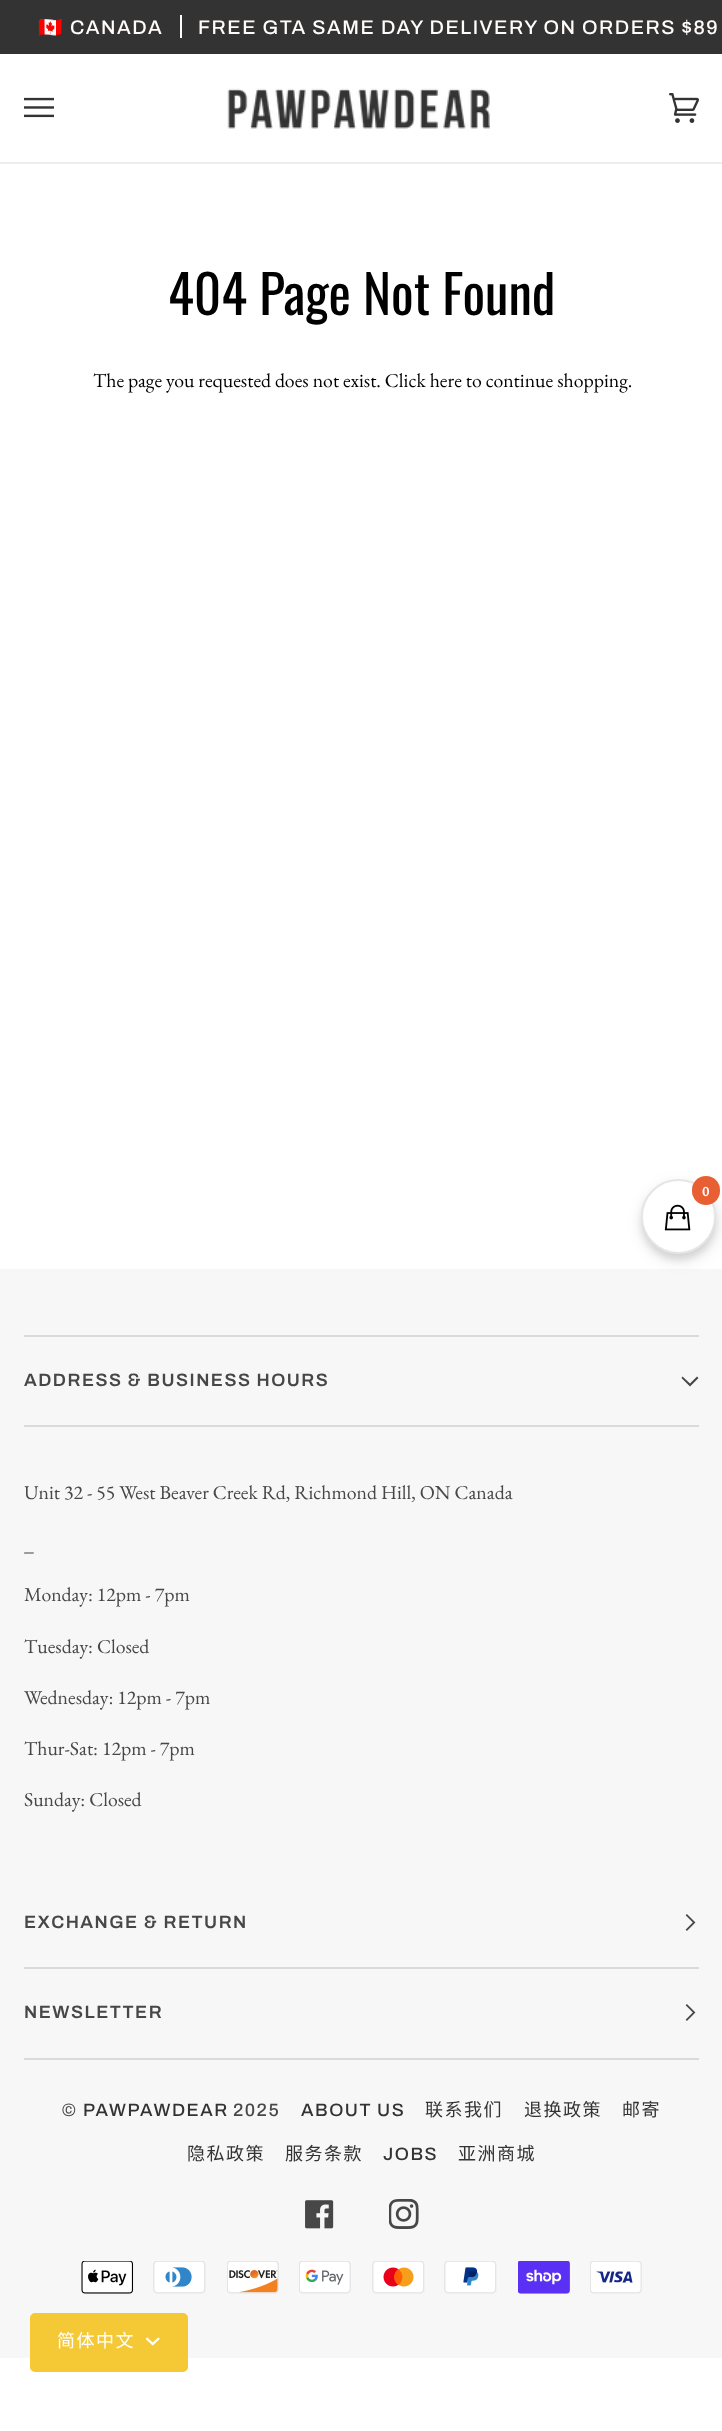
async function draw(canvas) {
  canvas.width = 722;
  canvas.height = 2431;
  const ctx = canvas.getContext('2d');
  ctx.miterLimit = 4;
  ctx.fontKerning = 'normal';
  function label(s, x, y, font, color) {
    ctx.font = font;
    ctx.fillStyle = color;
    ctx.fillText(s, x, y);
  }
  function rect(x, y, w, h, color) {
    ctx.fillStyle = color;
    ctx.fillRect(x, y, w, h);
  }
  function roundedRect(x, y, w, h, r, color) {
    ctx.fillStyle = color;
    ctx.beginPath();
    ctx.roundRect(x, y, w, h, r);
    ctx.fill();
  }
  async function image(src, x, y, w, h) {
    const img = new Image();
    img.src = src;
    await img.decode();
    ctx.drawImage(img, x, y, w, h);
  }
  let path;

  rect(0, 0, 722, 2431, '#fff');
  rect(0, 0, 722, 54, '#333');
  ctx.letterSpacing = '1.5px';
  label('🇨🇦', 38, 34, '19.75px Noto Color Emoji', '#fffcf9');
  label('CANADA', 70, 34, '500 19.75px Archivo', '#fffcf9');
  rect(180, 15, 2, 23, '#fffcf9');
  label('FREE GTA SAME DAY DELIVERY ON ORDERS $89', 198, 34, '500 19.75px Archivo', '#fffcf9');
  rect(0, 162, 722, 2, '#ededed');
  await image('assets/img1.png', 24, 97, 30, 21);
  await image('assets/img2.png', 227, 88, 263, 41);
  await image('assets/img3.png', 669, 93, 30, 30);
  ctx.letterSpacing = '0px';
  label('404 Page Not Found', 168, 315, '53.25px Oswald', '#000');
  label('The page you requested does not exist. Click here to continue shopping.', 93, 387, '19.75px EB Garamond', '#000');
  rect(0, 1269, 722, 1089, '#f7f7f7');
  ctx.fillStyle = '#00000014';
  ctx.filter = 'blur(3px)';
  ctx.beginPath();
  ctx.roundRect(641, 1185, 75, 75, 37.5);
  ctx.fill();
  ctx.filter = 'none';
  ctx.fillStyle = '#0000001f';
  ctx.filter = 'blur(7.5px)';
  ctx.beginPath();
  ctx.roundRect(642, 1185, 75, 75, 37.5);
  ctx.fill();
  ctx.filter = 'none';
  ctx.fillStyle = '#fff';
  ctx.beginPath();
  ctx.arc(678.5, 1216.5, 37.5, 0, 2 * Math.PI);
  ctx.fill();
  ctx.beginPath();
  ctx.arc(678.5, 1216.5, 36.5, 0, 2 * Math.PI);
  ctx.strokeStyle = '#0000001a';
  ctx.lineWidth = 2;
  ctx.stroke();
  roundedRect(692, 1176, 28, 29, 14, '#e75f33');
  label('0', 702, 1196, 'bold 14px EB Garamond', '#fff');
  await image('assets/img4.png', 664, 1204, 27, 27);
  rect(24, 1335, 675, 2, '#dadada');
  rect(24, 1425, 675, 2, '#dadada');
  ctx.letterSpacing = '1.5px';
  label('ADDRESS & BUSINESS HOURS', 24, 1386, '600 18px Archivo', '#474747');
  path = new Path2D('M690 1383.5L697 1376.5L698.5 1378L690 1386.5L681.5 1378L682.5 1376.5Z');
  ctx.fill(path, 'evenodd');
  ctx.letterSpacing = '0px';
  label('Unit 32 - 55 West Beaver Creek Rd, Richmond Hill, ON Canada', 24, 1499, '19.75px EB Garamond', '#474747');
  label('_', 24, 1550, '19.75px EB Garamond', '#474747');
  label('Monday: 12pm - 7pm', 24, 1601, '19.75px EB Garamond', '#474747');
  label('Tuesday: Closed', 24, 1653, '19.75px EB Garamond', '#474747');
  label('Wednesday: 12pm - 7pm', 24, 1704, '19.75px EB Garamond', '#474747');
  label('Thur-Sat: 12pm - 7pm', 24, 1755, '19.75px EB Garamond', '#474747');
  label('Sunday: Closed', 24, 1806, '19.75px EB Garamond', '#474747');
  rect(24, 1967, 675, 2, '#dadada');
  ctx.letterSpacing = '1.5px';
  label('EXCHANGE & RETURN', 24, 1928, '600 18px Archivo', '#474747');
  await image('assets/img5.png', 685, 1914, 11, 17);
  rect(24, 2058, 675, 2, '#dadada');
  label('NEWSLETTER', 24, 2018, '600 18px Archivo', '#474747');
  await image('assets/img5.png', 685, 2004, 11, 17);
  label('©', 62, 2116, '500 18px Archivo', '#474747');
  label('PAWPAWDEAR', 83, 2116, '500 18px Archivo', '#333');
  label('2025', 233, 2116, '500 18px Archivo', '#474747');
  label('ABOUT US', 301, 2116, '500 18px Archivo', '#333');
  label('联系我们', 425, 2116, '18px Noto Sans CJK SC', '#333');
  label('退换政策', 524, 2116, '18px Noto Sans CJK SC', '#333');
  label('邮寄', 622, 2116, '18px Noto Sans CJK SC', '#333');
  label('隐私政策', 187, 2160, '18px Noto Sans CJK SC', '#333');
  label('服务条款', 285, 2160, '18px Noto Sans CJK SC', '#333');
  label('JOBS', 383, 2160, '500 18px Archivo', '#333');
  label('亚洲商城', 458, 2160, '18px Noto Sans CJK SC', '#333');
  await image('assets/img6.png', 305, 2200, 29, 29);
  await image('assets/img7.png', 389, 2199, 30, 30);
  await image('assets/img8.png', 81, 2261, 53, 33);
  await image('assets/img9.png', 153, 2261, 53, 33);
  await image('assets/img10.png', 227, 2261, 52, 33);
  await image('assets/img11.png', 299, 2261, 52, 33);
  await image('assets/img12.png', 372, 2261, 53, 33);
  await image('assets/img13.png', 444, 2261, 53, 33);
  await image('assets/img14.png', 518, 2261, 52, 33);
  await image('assets/img15.png', 590, 2261, 52, 33);
  ctx.fillStyle = '#f5c936';
  ctx.beginPath();
  ctx.roundRect(31.5, 2314.5, 155, 56, 3.5);
  ctx.fill();
  ctx.strokeStyle = '#f5c936';
  ctx.lineWidth = 3;
  ctx.stroke();
  label('简体中文', 57, 2347, '18px Noto Sans CJK SC', '#fff');
  await image('assets/img16.png', 146, 2337, 14, 9);
}

draw(document.querySelector('canvas'));
